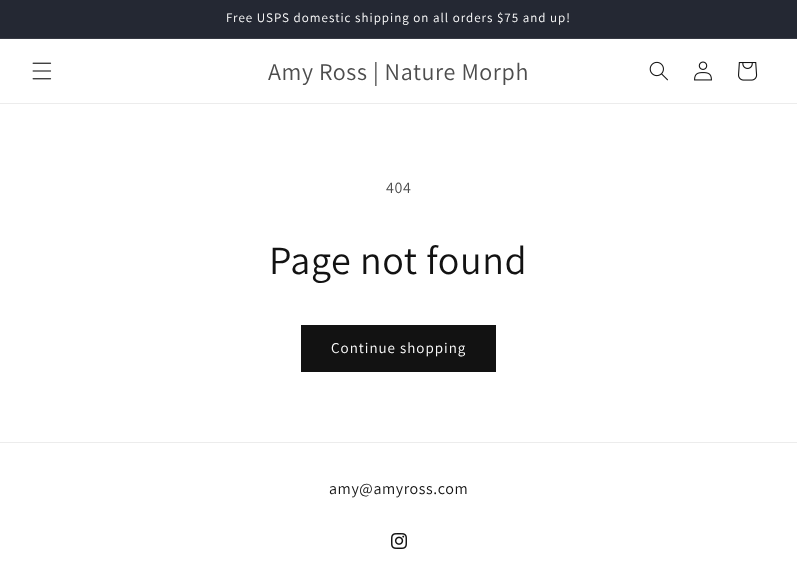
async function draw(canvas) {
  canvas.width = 797;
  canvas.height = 574;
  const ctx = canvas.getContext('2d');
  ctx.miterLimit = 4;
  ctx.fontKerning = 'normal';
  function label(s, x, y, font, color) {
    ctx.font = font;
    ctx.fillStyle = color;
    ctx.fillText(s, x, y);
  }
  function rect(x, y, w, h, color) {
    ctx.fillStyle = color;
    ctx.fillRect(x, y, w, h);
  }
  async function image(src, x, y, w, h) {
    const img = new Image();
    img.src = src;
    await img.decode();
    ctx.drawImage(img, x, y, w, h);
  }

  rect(0, 0, 797, 574, '#fff');
  rect(0, 0, 797, 38, '#242833');
  rect(0, 38, 797, 1, '#363943');
  ctx.letterSpacing = '1px';
  label('Free USPS domestic shipping on all orders $75 and up!', 226, 22, '13px Assistant', '#fff');
  rect(0, 103, 797, 1, '#ececec');
  await image('assets/img1.png', 32, 62, 20, 18);
  ctx.letterSpacing = '0.6px';
  label('Amy Ross | Nature Morph', 268, 80, '24px Assistant', '#4d4d4d');
  await image('assets/img2.png', 649, 61, 19, 20);
  await image('assets/img3.png', 694, 61, 18, 20);
  await image('assets/img4.png', 738, 62, 20, 19);
  label('404', 386, 193, '16px Assistant', '#4d4d4d');
  label('Page not found', 269, 274, '40px Assistant', '#121212');
  rect(301, 325, 195, 47, '#121212');
  ctx.letterSpacing = '1px';
  label('Continue shopping', 331, 353, '15px Assistant', '#fff');
  rect(0, 442, 797, 1, '#ececec');
  ctx.letterSpacing = '0.6px';
  label('amy@amyross.com', 329, 494, '16px Assistant', '#121212');
  await image('assets/img5.png', 391, 533, 16, 16);
}

draw(document.querySelector('canvas'));
